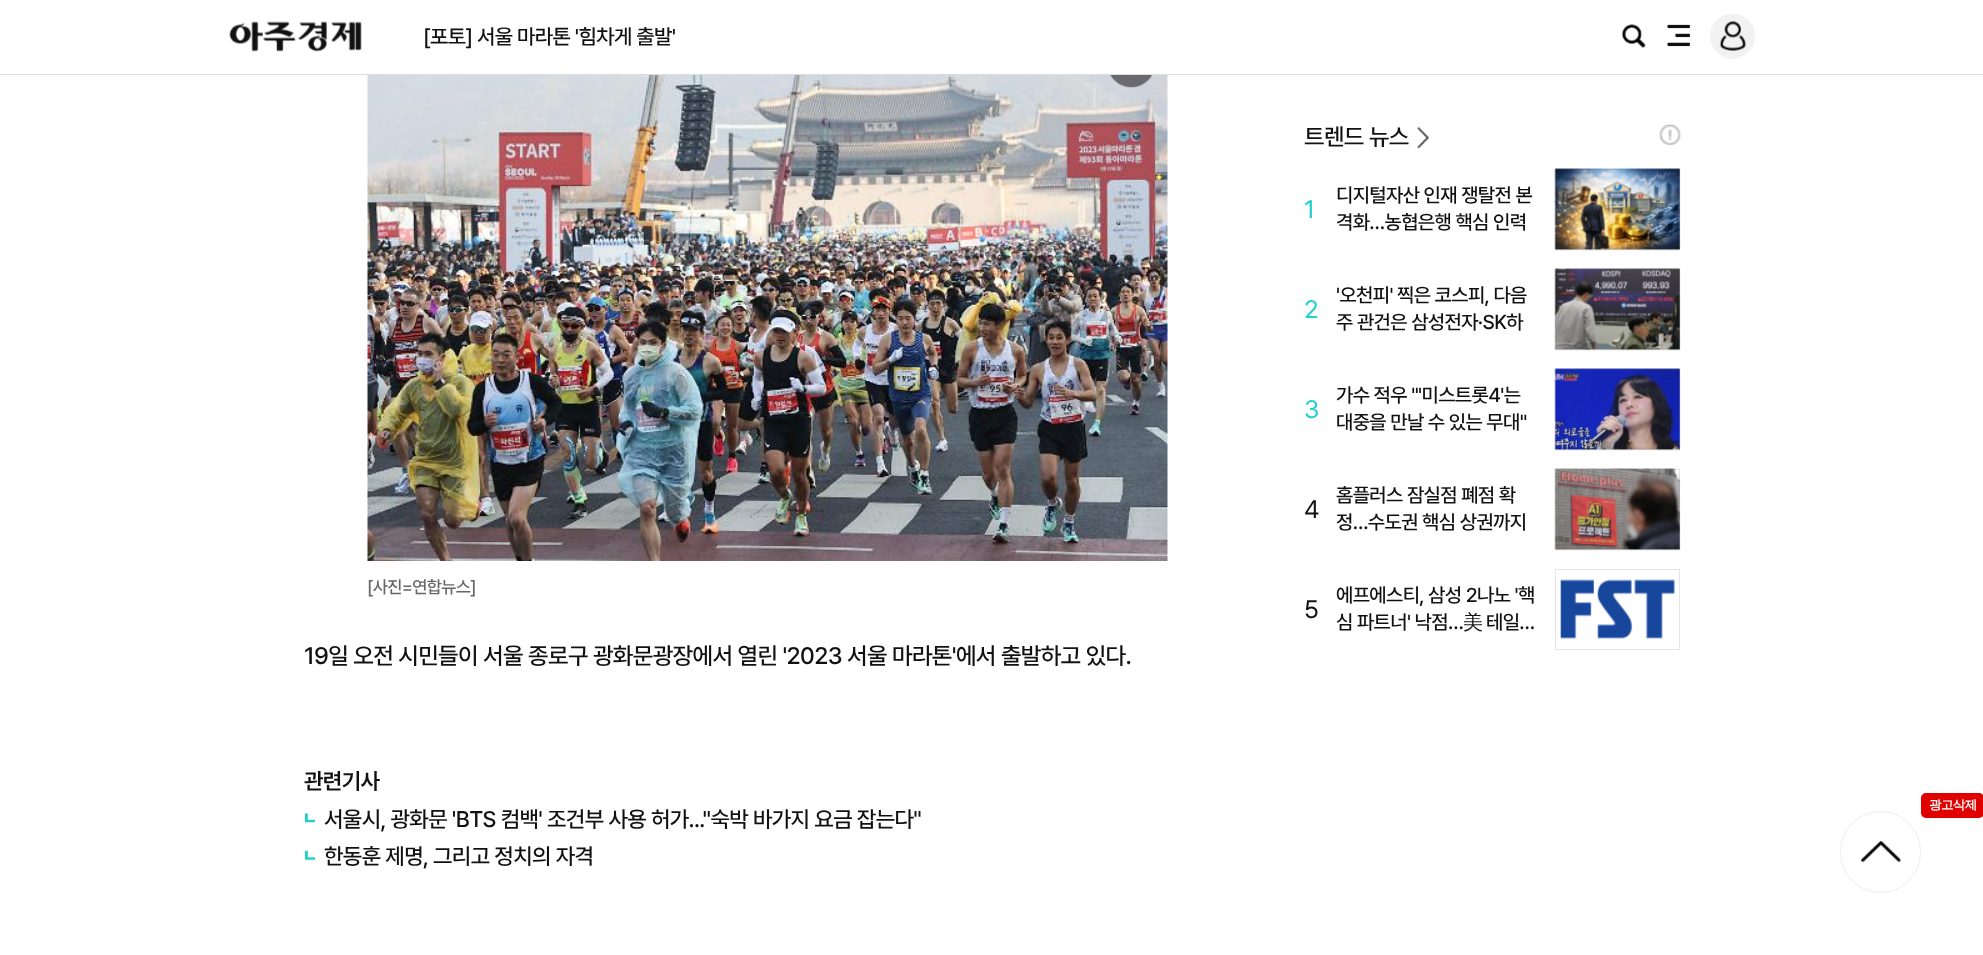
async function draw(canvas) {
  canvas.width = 1983;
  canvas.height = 955;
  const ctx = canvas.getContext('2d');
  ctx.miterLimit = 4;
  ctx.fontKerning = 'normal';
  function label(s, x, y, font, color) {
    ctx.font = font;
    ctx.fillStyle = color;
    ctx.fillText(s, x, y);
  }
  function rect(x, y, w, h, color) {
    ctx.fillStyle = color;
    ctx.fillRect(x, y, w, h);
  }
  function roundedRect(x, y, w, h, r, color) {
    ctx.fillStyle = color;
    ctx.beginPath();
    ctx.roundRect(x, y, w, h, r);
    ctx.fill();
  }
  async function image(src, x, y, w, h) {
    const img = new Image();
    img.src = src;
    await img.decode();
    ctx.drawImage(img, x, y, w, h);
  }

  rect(0, 0, 1983, 955, '#fff');
  rect(0, 74, 1983, 1, '#ddd');
  await image('assets/img1.png', 229, 21, 133, 31);
  ctx.letterSpacing = '-0.62px';
  label('[포토] 서울 마라톤 \'힘차게 출발\'', 423, 44, '500 21.25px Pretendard', '#111');
  await image('assets/img2.png', 1621, 24, 25, 24);
  await image('assets/img3.png', 1667, 24, 24, 23);
  await image('assets/img4.png', 1710, 14, 45, 45);
  label('트렌드 뉴스', 1304, 145, '500 23.75px Pretendard', '#111');
  await image('assets/img5.png', 1417, 126, 13, 23);
  await image('assets/img6.png', 1659, 124, 22, 21);
  label('1', 1304, 218, '25px Pretendard', '#20d0cc');
  label('디지털자산 인재 쟁탈전 본', 1336, 202, '500 20px Pretendard', '#111');
  label('격화…농협은행 핵심 인력', 1336, 229, '500 20px Pretendard', '#111');
  await image('assets/img7.png', 1554, 168, 127, 83);
  ctx.strokeStyle = '#0000001a';
  ctx.strokeRect(1555.5, 169.5, 124, 80);
  label('2', 1304, 318, '25px Pretendard', '#20d0cc');
  label('\'오천피\' 찍은 코스피, 다음', 1336, 302, '500 20px Pretendard', '#111');
  label('주 관건은 삼성전자·SK하', 1336, 329, '500 20px Pretendard', '#111');
  await image('assets/img8.png', 1554, 268, 127, 83);
  ctx.strokeRect(1555.5, 269.5, 124, 80);
  label('3', 1304, 418, '25px Pretendard', '#20d0cc');
  label('가수 적우 "\'미스트롯4\'는', 1336, 402, '500 20px Pretendard', '#111');
  label('대중을 만날 수 있는 무대"', 1336, 429, '500 20px Pretendard', '#111');
  await image('assets/img9.png', 1554, 368, 127, 83);
  ctx.strokeRect(1555.5, 369.5, 124, 80);
  label('4', 1304, 518, '25px Pretendard', '#111');
  label('홈플러스 잠실점 폐점 확', 1336, 502, '500 20px Pretendard', '#111');
  label('정…수도권 핵심 상권까지', 1336, 529, '500 20px Pretendard', '#111');
  await image('assets/img10.png', 1554, 468, 127, 83);
  ctx.strokeRect(1555.5, 469.5, 124, 80);
  label('5', 1304, 618, '25px Pretendard', '#111');
  label('에프에스티, 삼성 2나노 \'핵', 1336, 602, '500 20px Pretendard', '#111');
  label('심 파트너\' 낙점…', 1336, 629, '500 20px Pretendard', '#111');
  label('美', 1463, 629, '500 20px WenQuanYi Zen Hei', '#111');
  label('테일…', 1486, 629, '500 20px Pretendard', '#111');
  await image('assets/img11.png', 1560, 579, 116, 61);
  ctx.strokeStyle = '#e6e6e6';
  ctx.strokeRect(1555.5, 569.5, 124, 80);
  await image('assets/img12.png', 367, 75, 801, 486);
  await image('assets/img13.png', 1110, 75, 43, 13);
  label('[사진=연합뉴스]', 367, 593, '500 17.5px Pretendard', '#666');
  label('19일 오전 시민들이 서울 종로구 광화문광장에서 열린 \'2023 서울 마라톤\'에서 출발하고 있다.', 304, 664, '500 23.75px Pretendard', '#111');
  label('관련기사', 304, 789, '600 22.5px Pretendard', '#111');
  await image('assets/img14.png', 305, 813, 10, 10);
  label('서울시, 광화문 \'BTS 컴백\' 조건부 사용 허가..."숙박 바가지 요금 잡는다"', 324, 827, '500 22.5px Pretendard', '#111');
  await image('assets/img15.png', 305, 851, 10, 9);
  label('한동훈 제명, 그리고 정치의 자격', 324, 864, '500 22.5px Pretendard', '#111');
  await image('assets/img16.png', 1861, 841, 40, 22);
  ctx.beginPath();
  ctx.roundRect(1840.5, 811.5, 80, 81, 40);
  ctx.strokeStyle = '#eee';
  ctx.stroke();
  roundedRect(1921, 793, 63, 25, 5, '#df0000');
  label('광고삭제', 1929, 809, 'bold 12.5px WenQuanYi Zen Hei', '#fff');
}

draw(document.querySelector('canvas'));
